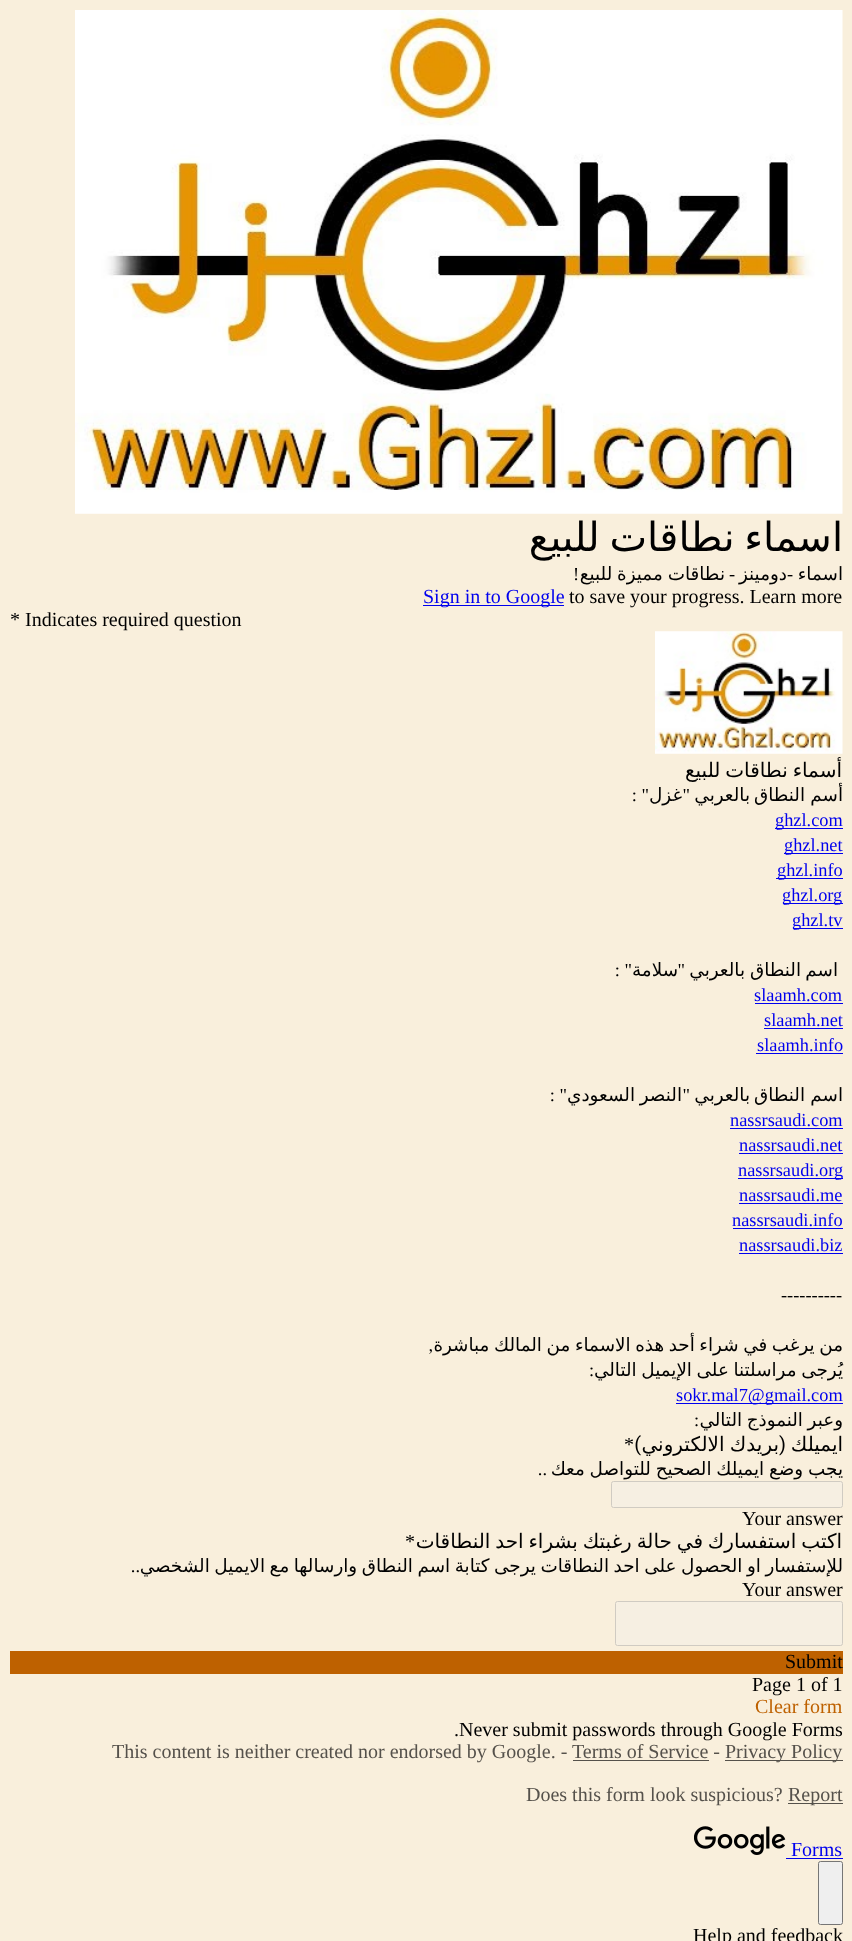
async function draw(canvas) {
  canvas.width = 852;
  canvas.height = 1941;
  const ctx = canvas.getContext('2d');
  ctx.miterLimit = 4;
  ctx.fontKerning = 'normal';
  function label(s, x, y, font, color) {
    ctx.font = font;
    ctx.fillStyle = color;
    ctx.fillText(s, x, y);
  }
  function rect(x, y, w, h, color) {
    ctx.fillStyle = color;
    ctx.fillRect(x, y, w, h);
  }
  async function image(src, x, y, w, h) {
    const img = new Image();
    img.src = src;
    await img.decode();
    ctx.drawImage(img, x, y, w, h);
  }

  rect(0, 0, 852, 1941, '#f9efdc');
  await image('assets/img1.png', 75, 10, 768, 504);
  ctx.wordSpacing = '-3px';
  ctx.direction = 'rtl';
  label('اسماء نطاقات للبيع', 843, 551, '40px DejaVu Sans', '#000');
  ctx.wordSpacing = '0px';
  label('!', 579, 580, '18.35px Liberation Serif', '#000');
  ctx.wordSpacing = '-1px';
  label('نطاقات مميزة للبيع', 725, 580, '18.35px DejaVu Sans', '#000');
  ctx.wordSpacing = '0px';
  label('-', 735, 580, '18.35px Liberation Serif', '#000');
  label('دومينز', 787, 580, '18.35px DejaVu Sans', '#000');
  label('-', 793, 580, '18.35px Liberation Serif', '#000');
  label('اسماء', 843, 580, '18.35px DejaVu Sans', '#000');
  rect(423, 605, 141, 1, '#00e');
  ctx.direction = 'ltr';
  label('Sign in to Google', 423, 603, '20px Liberation Serif', '#00e');
  label('to save your progress. Learn more', 569, 603, '20px Liberation Serif', '#000');
  label('* Indicates required question', 10, 626, '20px Liberation Serif', '#000');
  await image('assets/img2.png', 655, 631, 188, 123);
  ctx.wordSpacing = '-1.5px';
  ctx.direction = 'rtl';
  label('أسماء نطاقات للبيع', 842, 777, '20px DejaVu Sans', '#000');
  ctx.wordSpacing = '0px';
  label('" :', 649, 801, '18.35px Liberation Serif', '#000');
  label('غزل', 682, 801, '18.35px DejaVu Sans', '#000');
  label('"', 690, 801, '18.35px Liberation Serif', '#000');
  label('بالعربي', 750, 801, '18.35px DejaVu Sans', '#000');
  label('النطاق', 805, 801, '18.35px DejaVu Sans', '#000');
  label('أسم', 843, 801, '18.35px DejaVu Sans', '#000');
  rect(775, 828, 68, 1, '#00e');
  ctx.direction = 'ltr';
  label('ghzl.com', 775, 826, '18.35px Liberation Serif', '#00e');
  rect(784, 853, 59, 1, '#00e');
  label('ghzl.net', 784, 851, '18.35px Liberation Serif', '#00e');
  rect(776, 878, 67, 1, '#00e');
  label('ghzl.info', 777, 876, '18.35px Liberation Serif', '#00e');
  rect(783, 903, 60, 1, '#00e');
  label('ghzl.org', 782, 901, '18.35px Liberation Serif', '#00e');
  rect(793, 928, 50, 1, '#00e');
  label('ghzl.tv', 792, 926, '18.35px Liberation Serif', '#00e');
  ctx.direction = 'rtl';
  label('" :', 632, 976, '18.35px Liberation Serif', '#000');
  label('سلامة', 678, 976, '18.35px DejaVu Sans', '#000');
  label('"', 685, 976, '18.35px Liberation Serif', '#000');
  label('بالعربي', 745, 976, '18.35px DejaVu Sans', '#000');
  label('النطاق', 801, 976, '18.35px DejaVu Sans', '#000');
  label('اسم', 838, 976, '18.35px DejaVu Sans', '#000');
  ctx.direction = 'ltr';
  label('slaamh.com', 754, 1001, '18.35px Liberation Serif', '#00e');
  rect(755, 1003, 88, 1, '#00e');
  label('slaamh.net', 764, 1026, '18.35px Liberation Serif', '#00e');
  rect(764, 1028, 79, 1, '#00e');
  label('slaamh.info', 757, 1051, '18.35px Liberation Serif', '#00e');
  rect(756, 1053, 87, 1, '#00e');
  ctx.direction = 'rtl';
  label('" :', 567, 1101, '18.35px Liberation Serif', '#000');
  label('السعودي', 635, 1101, '18.35px DejaVu Sans', '#000');
  label('النصر', 682, 1101, '18.35px DejaVu Sans', '#000');
  label('"', 690, 1101, '18.35px Liberation Serif', '#000');
  label('بالعربي', 750, 1101, '18.35px DejaVu Sans', '#000');
  label('النطاق', 805, 1101, '18.35px DejaVu Sans', '#000');
  label('اسم', 843, 1101, '18.35px DejaVu Sans', '#000');
  ctx.direction = 'ltr';
  label('nassrsaudi.com', 730, 1126, '18.35px Liberation Serif', '#00e');
  rect(730, 1128, 113, 1, '#00e');
  label('nassrsaudi.net', 739, 1151, '18.35px Liberation Serif', '#00e');
  rect(739, 1153, 104, 1, '#00e');
  rect(738, 1178, 105, 1, '#00e');
  label('nassrsaudi.org', 738, 1176, '18.35px Liberation Serif', '#00e');
  label('nassrsaudi.me', 739, 1201, '18.35px Liberation Serif', '#00e');
  rect(739, 1203, 104, 1, '#00e');
  label('nassrsaudi.info', 732, 1226, '18.35px Liberation Serif', '#00e');
  rect(733, 1228, 110, 1, '#00e');
  label('nassrsaudi.biz', 739, 1251, '18.35px Liberation Serif', '#00e');
  rect(739, 1253, 104, 1, '#00e');
  label('----------', 781, 1301, '18.35px Liberation Serif', '#000');
  ctx.direction = 'rtl';
  label(',', 433, 1351, '18.35px Liberation Serif', '#000');
  ctx.wordSpacing = '-1.25px';
  label('من يرغب في شراء أحد هذه الاسماء من المالك مباشرة', 843, 1351, '18.35px DejaVu Sans', '#000');
  ctx.wordSpacing = '0px';
  label(':', 594, 1376, '18.35px Liberation Serif', '#000');
  ctx.wordSpacing = '-1.25px';
  label('يُرجى مراسلتنا على الإيميل التالي', 843, 1376, '18.35px DejaVu Sans', '#000');
  rect(676, 1403, 167, 1, '#00e');
  ctx.wordSpacing = '0px';
  ctx.direction = 'ltr';
  label('sokr.mal7@gmail.com', 676, 1401, '18.35px Liberation Serif', '#00e');
  ctx.direction = 'rtl';
  label(':', 699, 1426, '18.35px Liberation Serif', '#000');
  ctx.wordSpacing = '-1.25px';
  label('وعبر النموذج التالي', 843, 1426, '18.35px DejaVu Sans', '#000');
  ctx.wordSpacing = '0px';
  ctx.direction = 'ltr';
  label('*', 624, 1451, '20px Liberation Serif', '#000');
  ctx.direction = 'rtl';
  label(')', 641, 1451, '20px Roboto', '#000');
  ctx.wordSpacing = '-1px';
  label('بريدك الالكتروني', 779, 1451, '20px DejaVu Sans', '#000');
  ctx.wordSpacing = '0px';
  label('(', 786, 1451, '20px Roboto', '#000');
  label('ايميلك', 843, 1451, '20px DejaVu Sans', '#000');
  label('..', 547, 1475, '18.35px Liberation Serif', '#000');
  ctx.wordSpacing = '-1px';
  label('يجب وضع ايميلك الصحيح للتواصل معك', 843, 1475, '18.35px DejaVu Sans', '#000');
  ctx.fillStyle = '#f6efe2';
  ctx.beginPath();
  ctx.roundRect(611.5, 1481.5, 231, 26, 2);
  ctx.fill();
  ctx.strokeStyle = '#d0cbc2';
  ctx.stroke();
  ctx.wordSpacing = '0px';
  ctx.direction = 'ltr';
  label('Your answer', 742, 1525, '20px Liberation Serif', '#000');
  label('*', 405, 1548, '20px Liberation Serif', '#000');
  ctx.wordSpacing = '-1.5px';
  ctx.direction = 'rtl';
  label('اكتب استفسارك في حالة رغبتك بشراء احد النطاقات', 842, 1548, '20px DejaVu Sans', '#000');
  ctx.wordSpacing = '0px';
  label('..', 140, 1572, '18.35px Liberation Serif', '#000');
  ctx.wordSpacing = '-1.25px';
  label('للإستفسار او الحصول على احد النطاقات يرجى كتابة اسم النطاق وارسالها مع الايميل الشخصي', 843, 1572, '18.35px DejaVu Sans', '#000');
  ctx.wordSpacing = '0px';
  ctx.direction = 'ltr';
  label('Your answer', 742, 1596, '20px Liberation Serif', '#000');
  ctx.fillStyle = '#f6efe2';
  ctx.beginPath();
  ctx.roundRect(615.5, 1601.5, 227, 44, 2);
  ctx.fill();
  ctx.stroke();
  rect(10, 1651, 833, 23, '#be6100');
  label('Submit', 785, 1668, '20px Liberation Serif', '#000');
  label('Page 1 of 1', 752, 1691, '20px Liberation Serif', '#000');
  label('Clear form', 755, 1713, '20px Liberation Serif', '#be6100');
  label('.Never submit passwords through Google Forms', 454, 1736, '20px Liberation Serif', '#000');
  label('This content is neither created nor endorsed by Google. -', 112, 1758, '20px Liberation Serif', '#55514b');
  label('Terms of Service -', 572, 1758, '20px Liberation Serif', '#55514b');
  rect(573, 1760, 136, 1, '#55514b');
  rect(725, 1760, 118, 1, '#55514b');
  label('Privacy Policy', 725, 1758, '20px Liberation Serif', '#55514b');
  label('Does this form look suspicious?', 526, 1801, '20px Liberation Serif', '#55514b');
  rect(788, 1803, 55, 1, '#55514b');
  label('Report', 788, 1801, '20px Liberation Serif', '#55514b');
  await image('assets/img3.png', 694, 1826, 92, 29);
  label('Forms', 791, 1856, '20px Liberation Serif', '#00e');
  rect(786, 1858, 57, 1, '#00e');
  ctx.fillStyle = '#efefef';
  ctx.beginPath();
  ctx.roundRect(818.5, 1861.5, 24, 63, 2);
  ctx.fill();
  ctx.strokeStyle = '#767676';
  ctx.stroke();
  label('Help and feedback', 693, 1942, '20px Liberation Serif', '#000');
}

draw(document.querySelector('canvas'));
